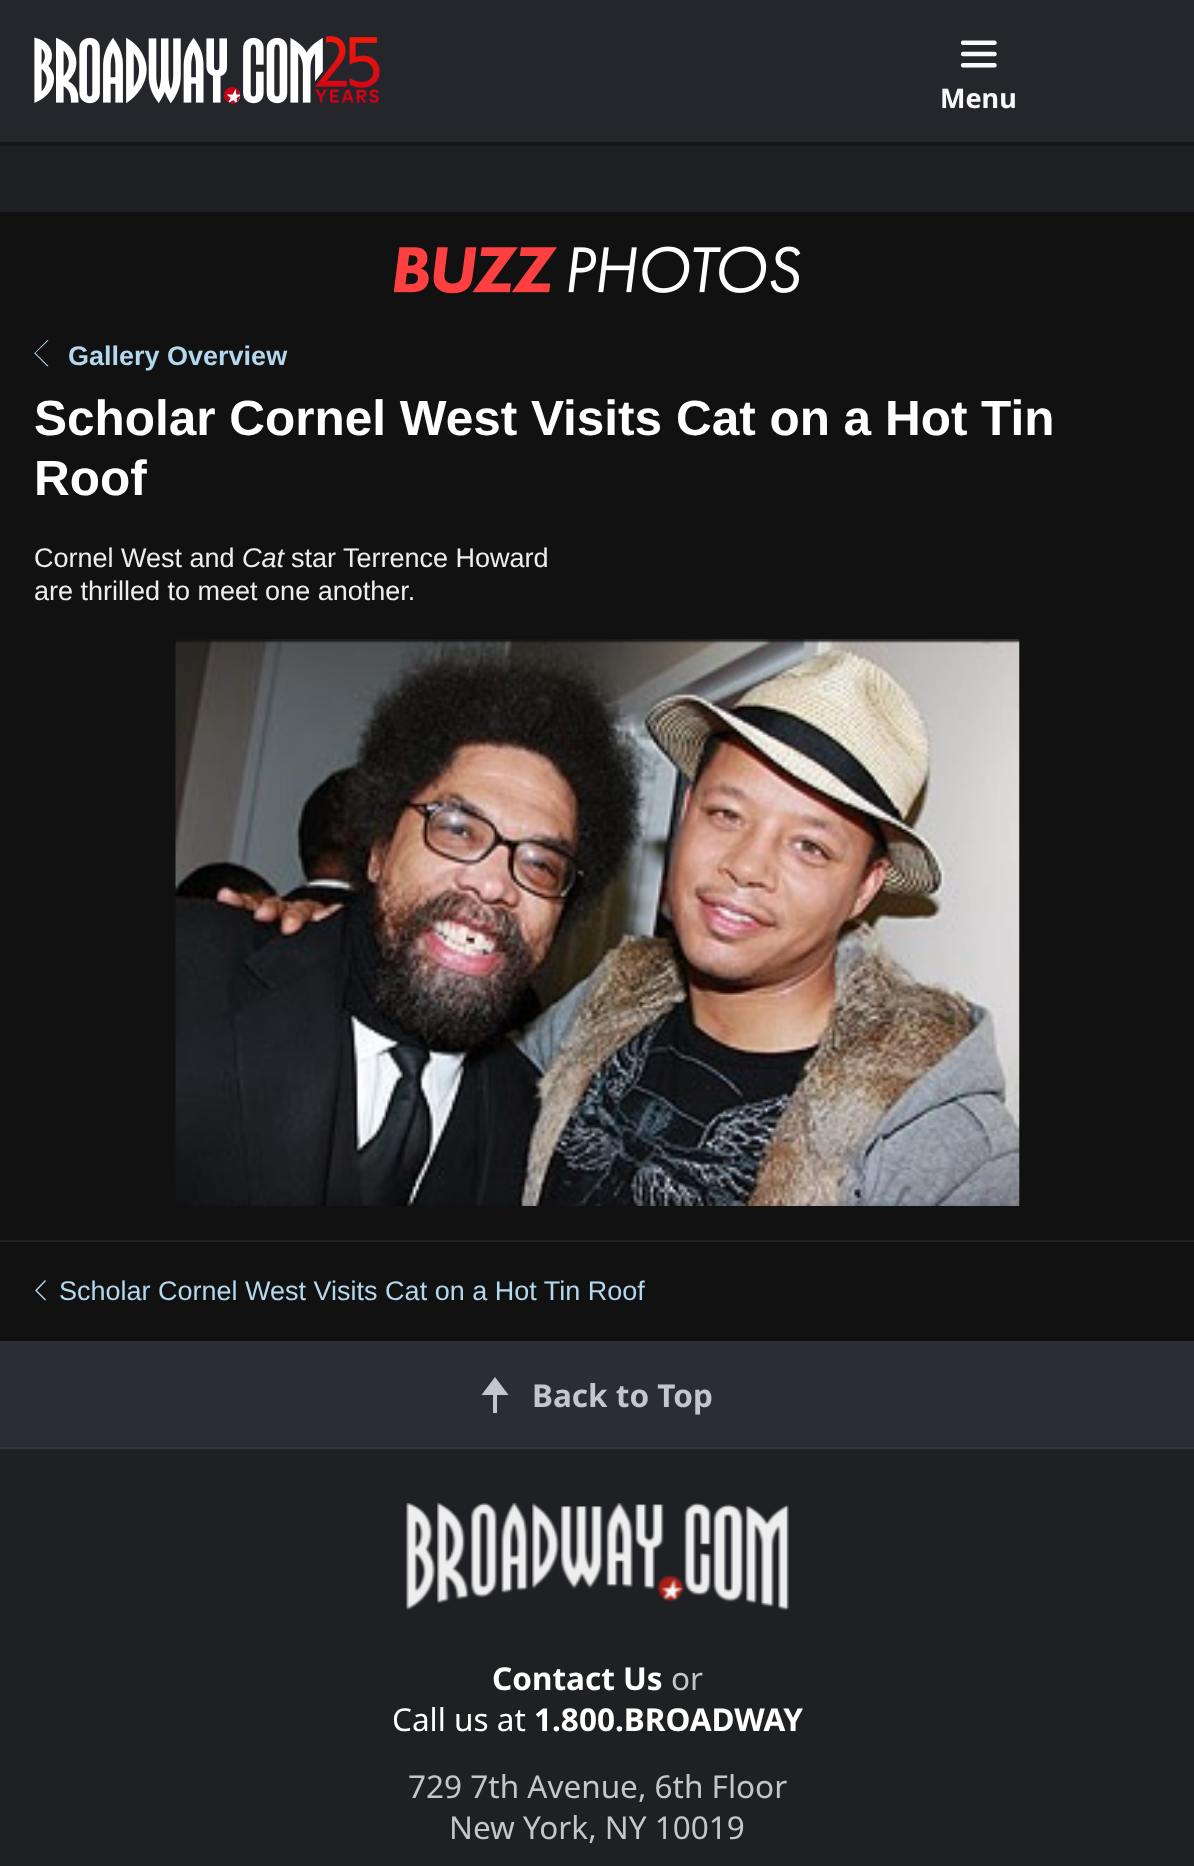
async function draw(canvas) {
  canvas.width = 1194;
  canvas.height = 1866;
  const ctx = canvas.getContext('2d');
  ctx.miterLimit = 4;
  ctx.fontKerning = 'normal';
  function label(s, x, y, font, color) {
    ctx.font = font;
    ctx.fillStyle = color;
    ctx.fillText(s, x, y);
  }
  function rect(x, y, w, h, color) {
    ctx.fillStyle = color;
    ctx.fillRect(x, y, w, h);
  }
  async function image(src, x, y, w, h) {
    const img = new Image();
    img.src = src;
    await img.decode();
    ctx.drawImage(img, x, y, w, h);
  }
  let path;

  rect(0, 0, 1194, 1866, '#111');
  rect(0, 0, 1194, 142, '#25262b');
  await image('assets/img1.png', 34, 36, 346, 68);
  await image('assets/img2.png', 961, 40, 36, 28);
  label('Menu', 940, 108, 'bold 27px Noto Sans', '#f9f9fa');
  rect(0, 146, 1194, 66, '#1f2023');
  rect(0, 142, 1194, 4, '#161616');
  await image('assets/img3.png', 394, 246, 407, 48);
  label('Gallery Overview', 68, 365, 'bold 27px Liberation Sans', '#b3d7ec');
  path = new Path2D('M35 352.5L34 353L47.5 366.5L48.5 366L35.5 353L48.5 340.5L47.5 340Z');
  ctx.fill(path, 'evenodd');
  label('Scholar Cornel West Visits Cat on a Hot Tin', 34, 435, 'bold 49.5px Liberation Sans', '#fff');
  label('Roof', 34, 495, 'bold 49.5px Liberation Sans', '#fff');
  label('Cornel West and', 34, 567, '27px Liberation Sans', '#eee');
  label('Cat', 242, 567, 'italic 27px Liberation Sans', '#eee');
  label('star Terrence Howard', 291, 567, '27px Liberation Sans', '#eee');
  label('are thrilled to meet one another.', 34, 600, '27px Liberation Sans', '#eee');
  await image('assets/img4.png', 175, 639, 845, 567);
  rect(0, 1240, 1194, 2, '#222');
  label('Scholar Cornel West Visits Cat on a Hot Tin Roof', 59, 1300, '27px Liberation Sans', '#b3d7ec');
  path = new Path2D('M46 1299.5L45 1300.5L35 1290.5L45 1280L46 1281L37 1290.5Z');
  ctx.fill(path);
  rect(0, 1341, 1194, 106, '#2b2c34');
  rect(0, 1447, 1194, 2, '#343540');
  ctx.fillStyle = '#c5c6cd';
  path = new Path2D('M495 1377L508.5 1395H497V1413H493V1395H481.5Z');
  ctx.fill(path, 'evenodd');
  label('Back to Top', 532, 1407, 'bold 31.5px Noto Sans', '#c5c6cd');
  rect(0, 1449, 1194, 417, '#1f2023');
  await image('assets/img5.png', 406, 1503, 383, 108);
  label('Contact Us', 492, 1690, 'bold 31.5px Noto Sans', '#fff');
  label('or', 671, 1690, '31.5px Noto Sans', '#c5c6cd');
  label('Call us at', 392, 1731, '31.5px Noto Sans', '#fff');
  label('1.800.BROADWAY', 534, 1731, 'bold 31.5px Noto Sans', '#fff');
  label('729 7th Avenue, 6th Floor', 408, 1798, '31.5px Noto Sans', '#c5c6cd');
  label('New York, NY 10019', 449, 1839, '31.5px Noto Sans', '#c5c6cd');
}

draw(document.querySelector('canvas'));
